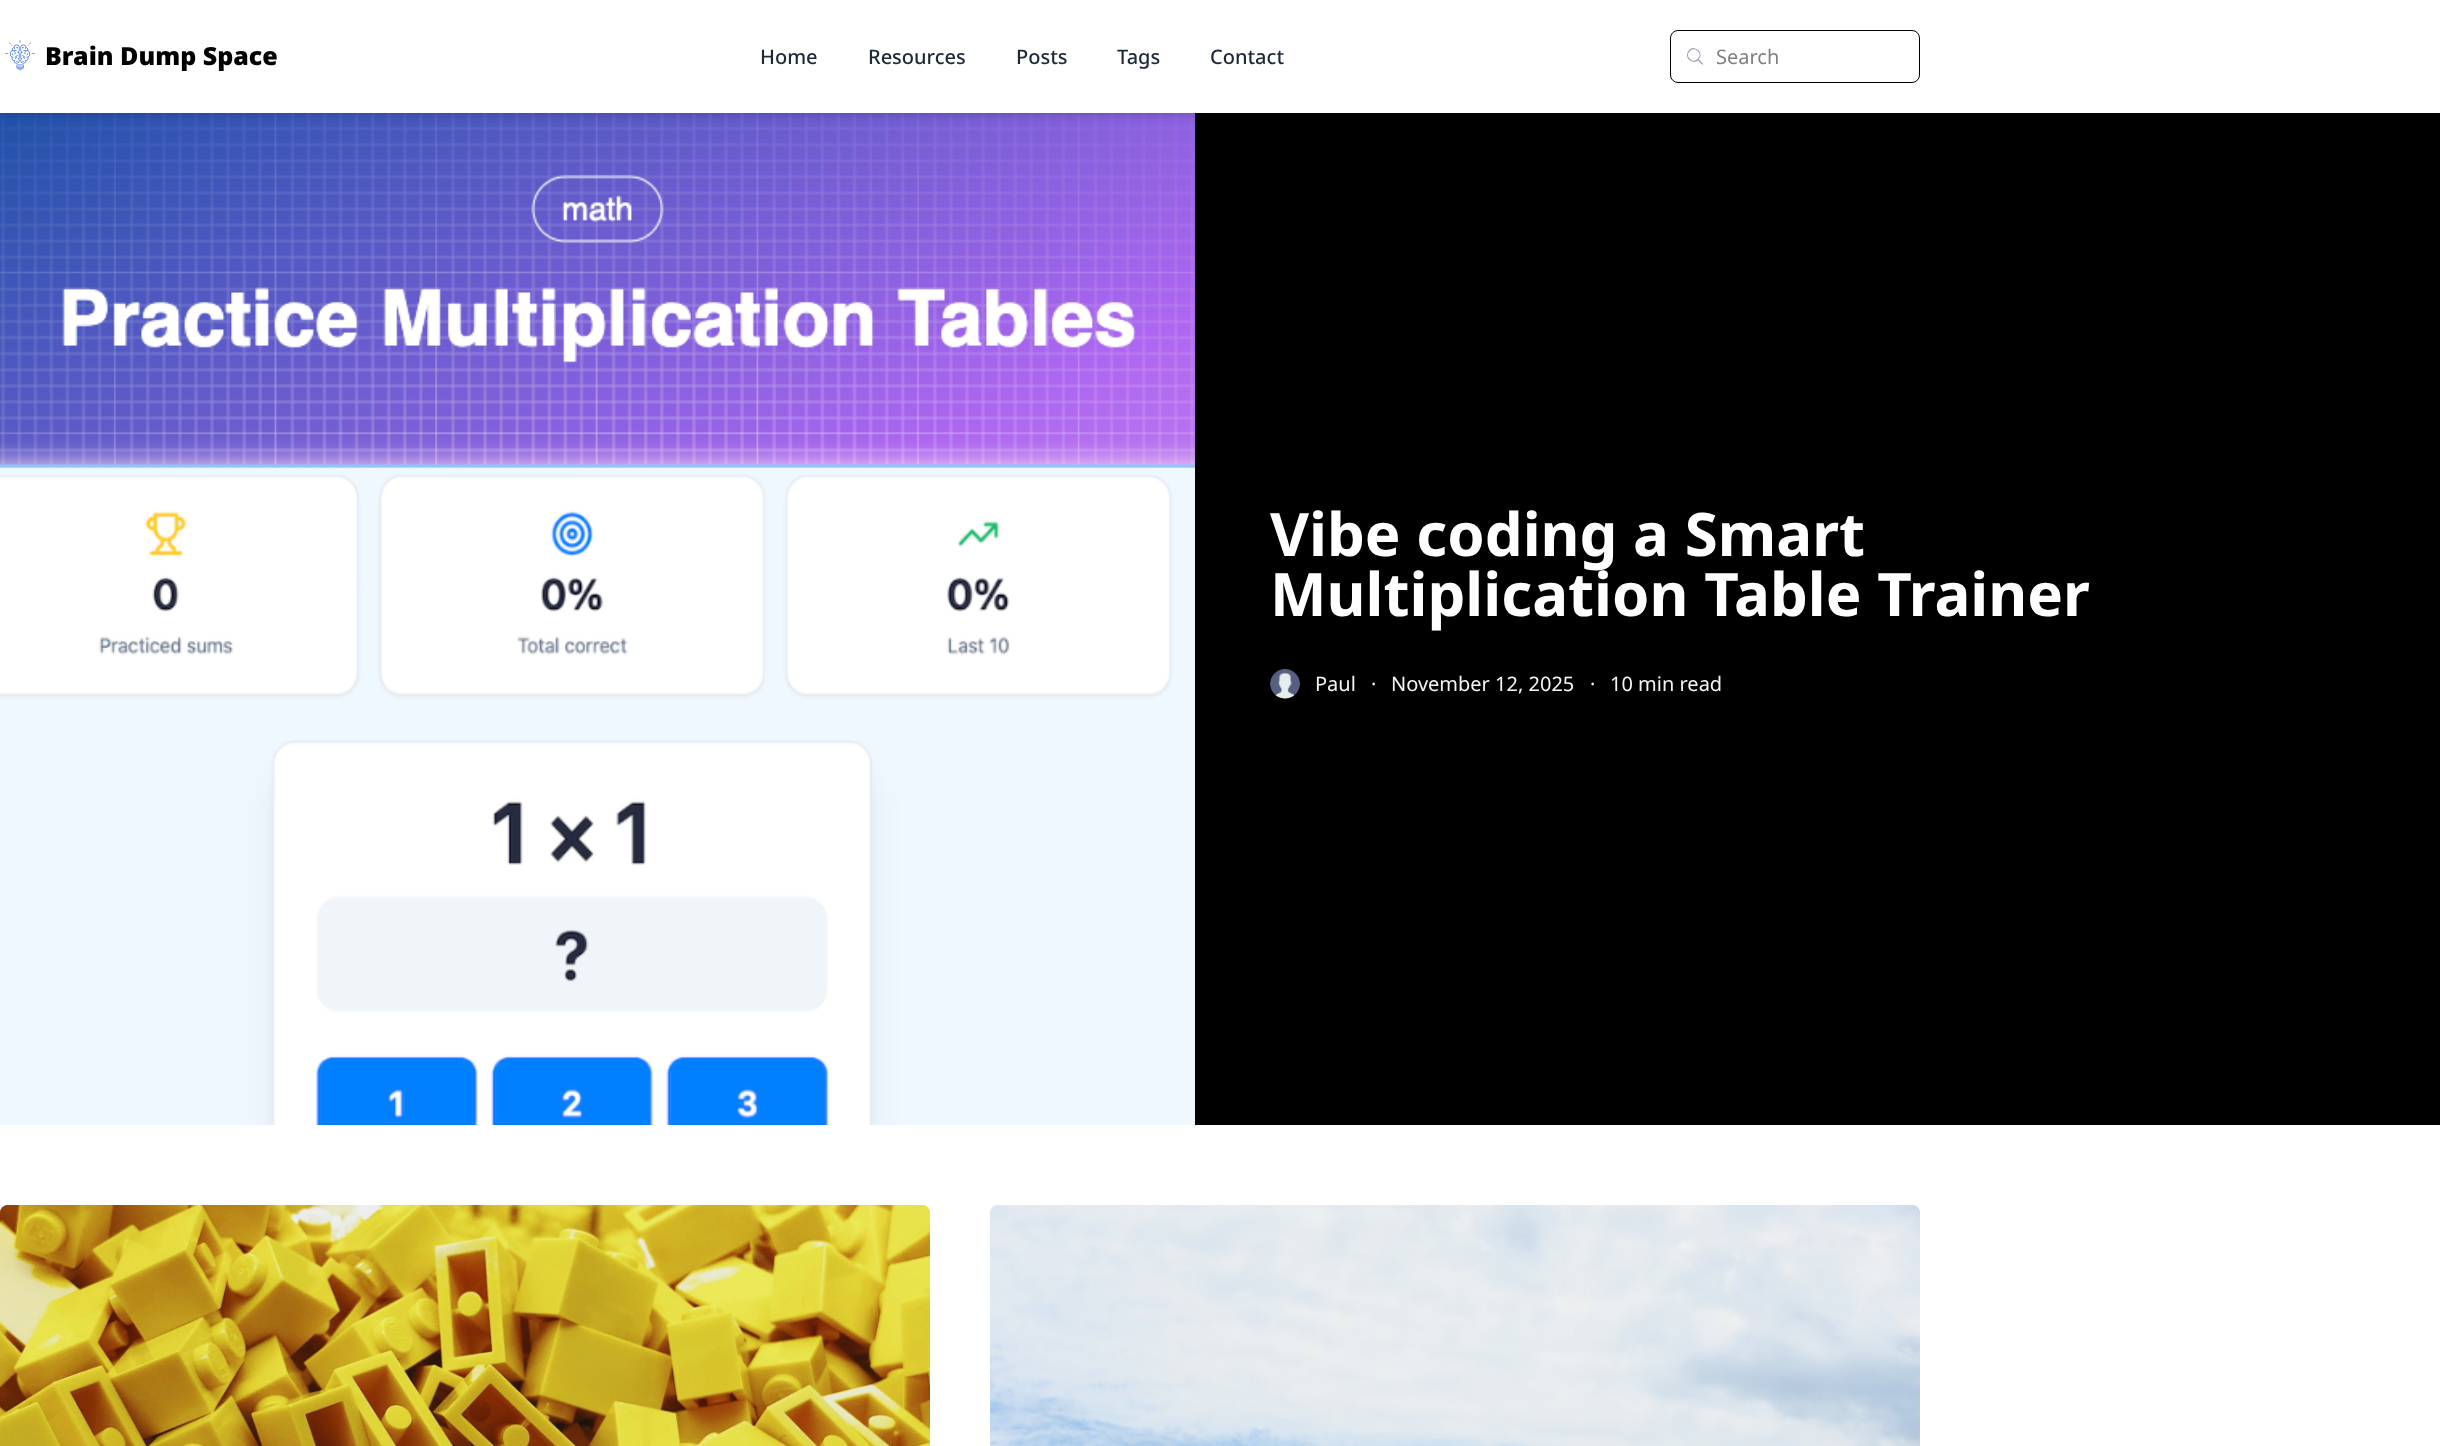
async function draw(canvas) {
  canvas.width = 2440;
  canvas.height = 1446;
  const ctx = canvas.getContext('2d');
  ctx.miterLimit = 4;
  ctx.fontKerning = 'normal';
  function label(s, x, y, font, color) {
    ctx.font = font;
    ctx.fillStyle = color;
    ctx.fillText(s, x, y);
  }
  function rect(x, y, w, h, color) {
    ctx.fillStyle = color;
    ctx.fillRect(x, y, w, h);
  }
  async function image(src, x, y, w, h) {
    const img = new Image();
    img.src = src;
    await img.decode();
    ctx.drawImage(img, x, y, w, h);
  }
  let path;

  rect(0, 0, 2440, 1446, '#fff');
  rect(1195, 113, 1245, 1012, '#000');
  await image('assets/img2.png', 0, 113, 1195, 1012);
  ctx.fillStyle = '#0000001a';
  ctx.filter = 'blur(2.5px)';
  ctx.beginPath();
  ctx.rect(3, 5, 2435, 108);
  ctx.fill();
  ctx.filter = 'none';
  ctx.filter = 'blur(4px)';
  ctx.beginPath();
  ctx.rect(1, 6, 2438, 110);
  ctx.fill();
  ctx.filter = 'none';
  rect(0, 0, 2440, 113, '#fff');
  await image('assets/img1.png', 5, 40, 30, 31);
  label('Brain Dump Space', 45, 65, '900 25px Noto Sans', '#000');
  label('Home', 760, 64, '500 20px Noto Sans', '#1e2939');
  label('Resources', 868, 64, '500 20px Noto Sans', '#1e2939');
  label('Posts', 1016, 64, '500 20px Noto Sans', '#1e2939');
  label('Tags', 1117, 64, '500 20px Noto Sans', '#1e2939');
  label('Contact', 1210, 64, '500 20px Noto Sans', '#1e2939');
  ctx.beginPath();
  ctx.roundRect(1670.5, 30.5, 249, 52, 7.5);
  ctx.strokeStyle = '#000';
  ctx.stroke();
  path = new Path2D('M1702.5 64L1698 59.5M1698 59.5C1704 53.5 1695 45 1689.5 50.5C1683.5 56.5 1692.5 65 1698 59.5Z');
  ctx.strokeStyle = '#99a1af';
  ctx.lineWidth = 1.2;
  ctx.lineCap = 'round';
  ctx.lineJoin = 'round';
  ctx.stroke(path);
  label('Search', 1716, 64, '20px Noto Sans', '#808080');
  label('Vibe coding a Smart', 1270, 556, 'bold 60px Noto Sans', '#fff');
  label('Multiplication Table Trainer', 1270, 616, 'bold 60px Noto Sans', '#fff');
  await image('assets/img3.png', 1270, 668, 30, 31);
  label('Paul', 1315, 691, '20px Noto Sans', '#f3f4f6');
  label('·', 1371, 691, '20px Noto Sans', '#f3f4f6');
  label('November 12, 2025', 1391, 691, '20px Noto Sans', '#f3f4f6');
  label('·', 1590, 691, '20px Noto Sans', '#f3f4f6');
  label('10 min read', 1610, 691, '20px Noto Sans', '#f3f4f6');
  await image('assets/img4.png', 0, 1205, 930, 241);
  await image('assets/img5.png', 990, 1205, 930, 241);
}

draw(document.querySelector('canvas'));
